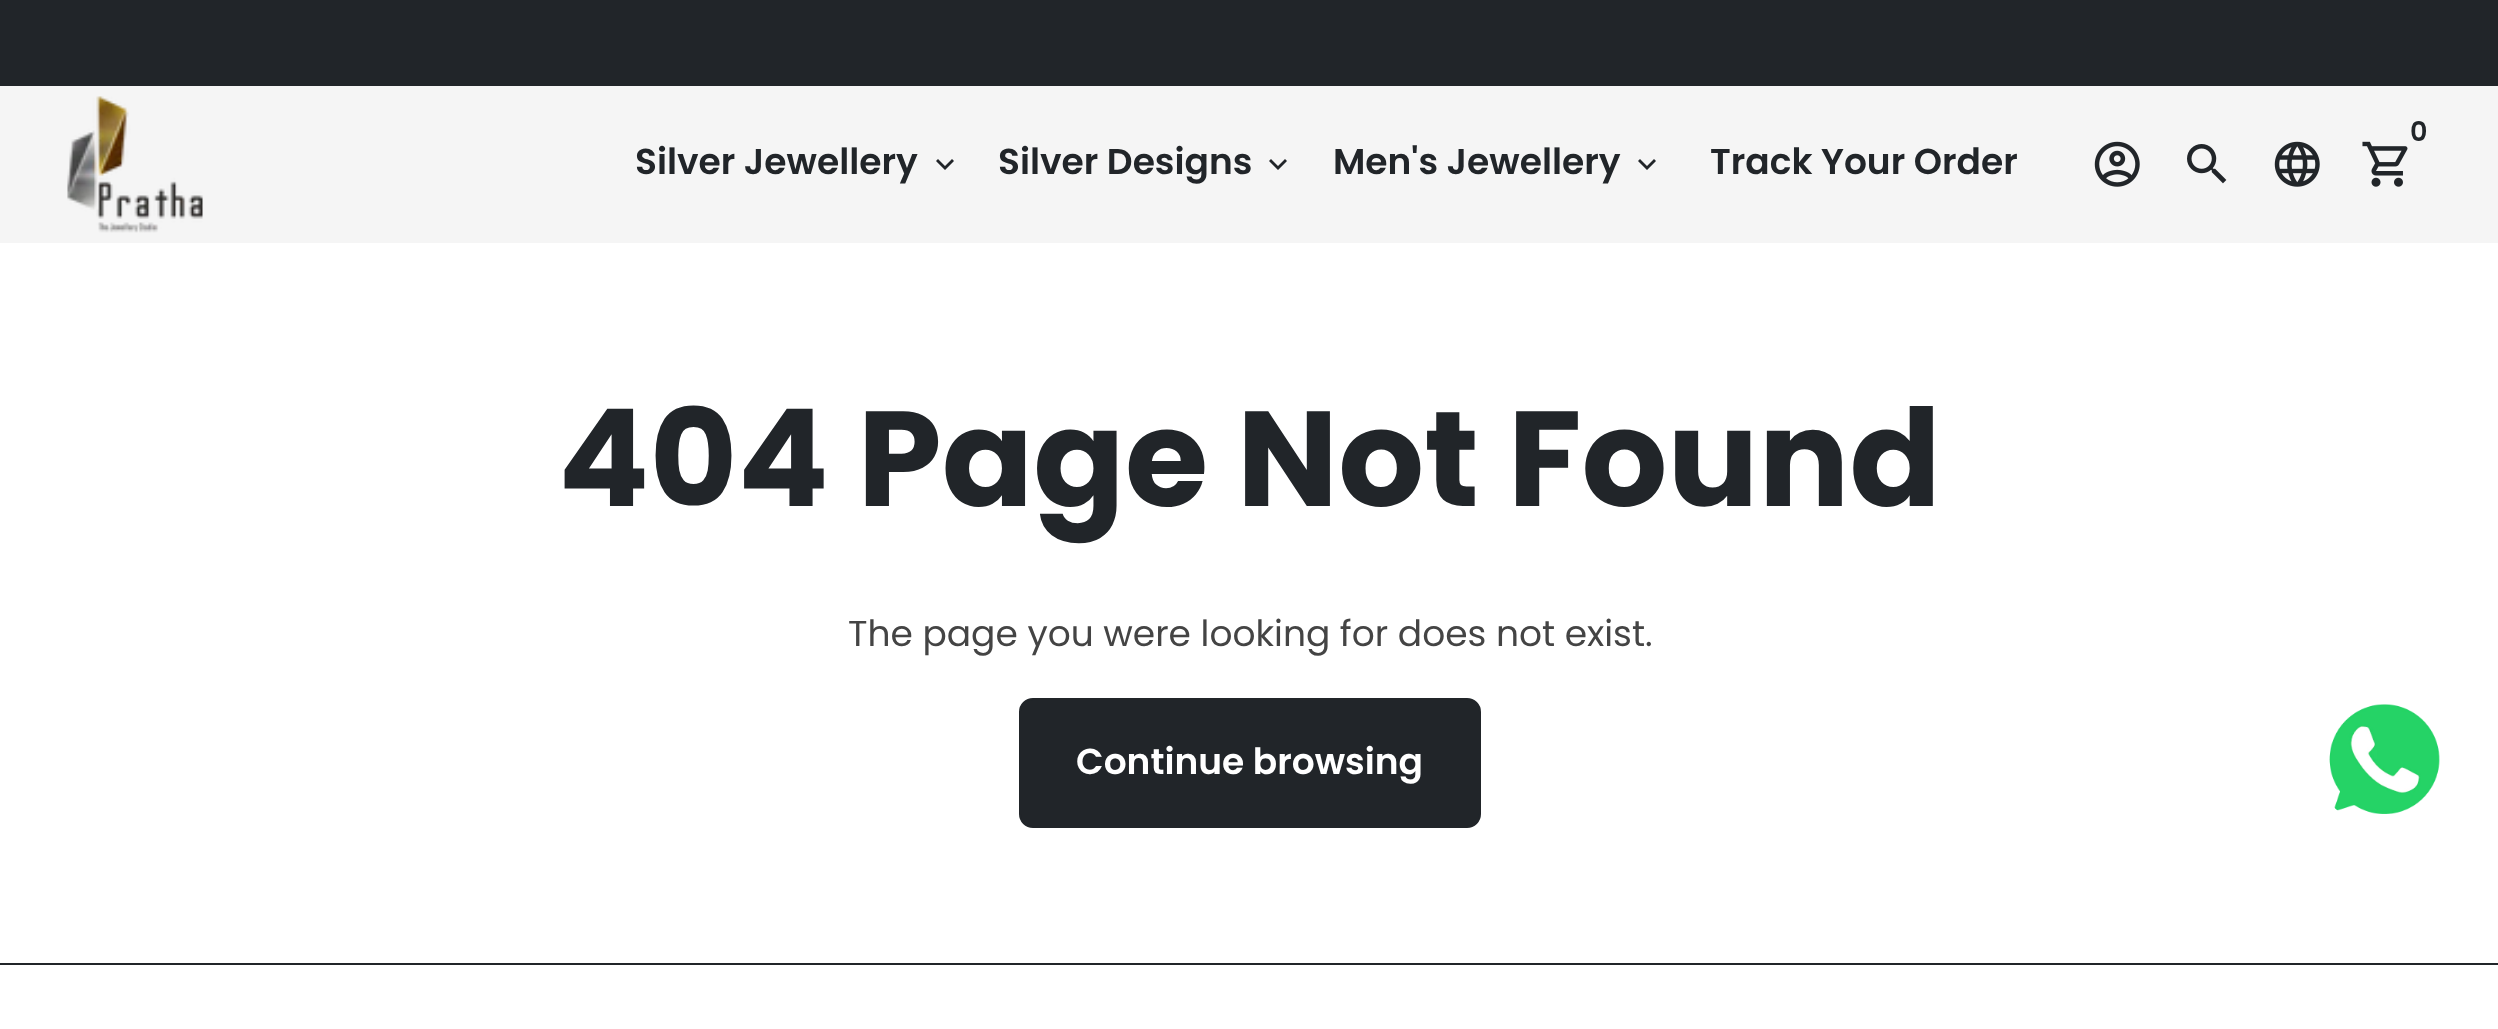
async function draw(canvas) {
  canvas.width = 2498;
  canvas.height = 1029;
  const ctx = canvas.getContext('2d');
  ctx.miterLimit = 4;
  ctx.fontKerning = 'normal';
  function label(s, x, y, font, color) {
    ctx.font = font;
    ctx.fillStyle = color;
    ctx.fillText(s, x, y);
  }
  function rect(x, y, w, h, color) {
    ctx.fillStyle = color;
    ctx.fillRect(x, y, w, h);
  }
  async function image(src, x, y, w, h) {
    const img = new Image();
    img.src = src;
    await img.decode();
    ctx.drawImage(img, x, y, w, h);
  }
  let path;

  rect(0, 0, 2498, 1029, '#fff');
  rect(0, 0, 2498, 86, '#212529');
  rect(0, 86, 2498, 157, '#f5f5f5');
  await image('assets/img1.png', 67, 96, 136, 137);
  label('0', 2410, 141, '600 27px Poppins', '#212529');
  await image('assets/img2.png', 2362, 141, 46, 46);
  await image('assets/img3.png', 2094, 141, 46, 46);
  await image('assets/img4.png', 2187, 144, 40, 40);
  await image('assets/img5.png', 2274, 141, 46, 46);
  label('Silver Jewellery', 635, 174, '600 36px Poppins', '#212529');
  path = new Path2D('M938 159L945 166L952 159L954 161L945 170L936 161Z');
  ctx.fill(path);
  label('Silver Designs', 998, 174, '600 36px Poppins', '#212529');
  path = new Path2D('M1271 159L1278 166L1285 159L1287 161L1278 170L1269 161Z');
  ctx.fill(path);
  label('Men\'s Jewellery', 1333, 174, '600 36px Poppins', '#212529');
  path = new Path2D('M1640 159L1647 166L1654 159L1656 161L1647 170L1638 161Z');
  ctx.fill(path);
  label('Track Your Order', 1710, 174, '600 36px Poppins', '#212529');
  label('404 Page Not Found', 558, 506, 'bold 135px Poppins', '#212529');
  label('The page you were looking for does not exist.', 848, 646, '36px Poppins', '#444');
  ctx.fillStyle = '#212529';
  ctx.beginPath();
  ctx.roundRect(1020, 699, 460, 128, 13);
  ctx.fill();
  ctx.strokeStyle = '#212529';
  ctx.lineWidth = 2;
  ctx.stroke();
  label('Continue browsing', 1076, 774, '600 36px Poppins', '#fff');
  rect(0, 963, 2498, 2, '#212529');
  await image('assets/img6.png', 2329, 704, 111, 110);
}

draw(document.querySelector('canvas'));
